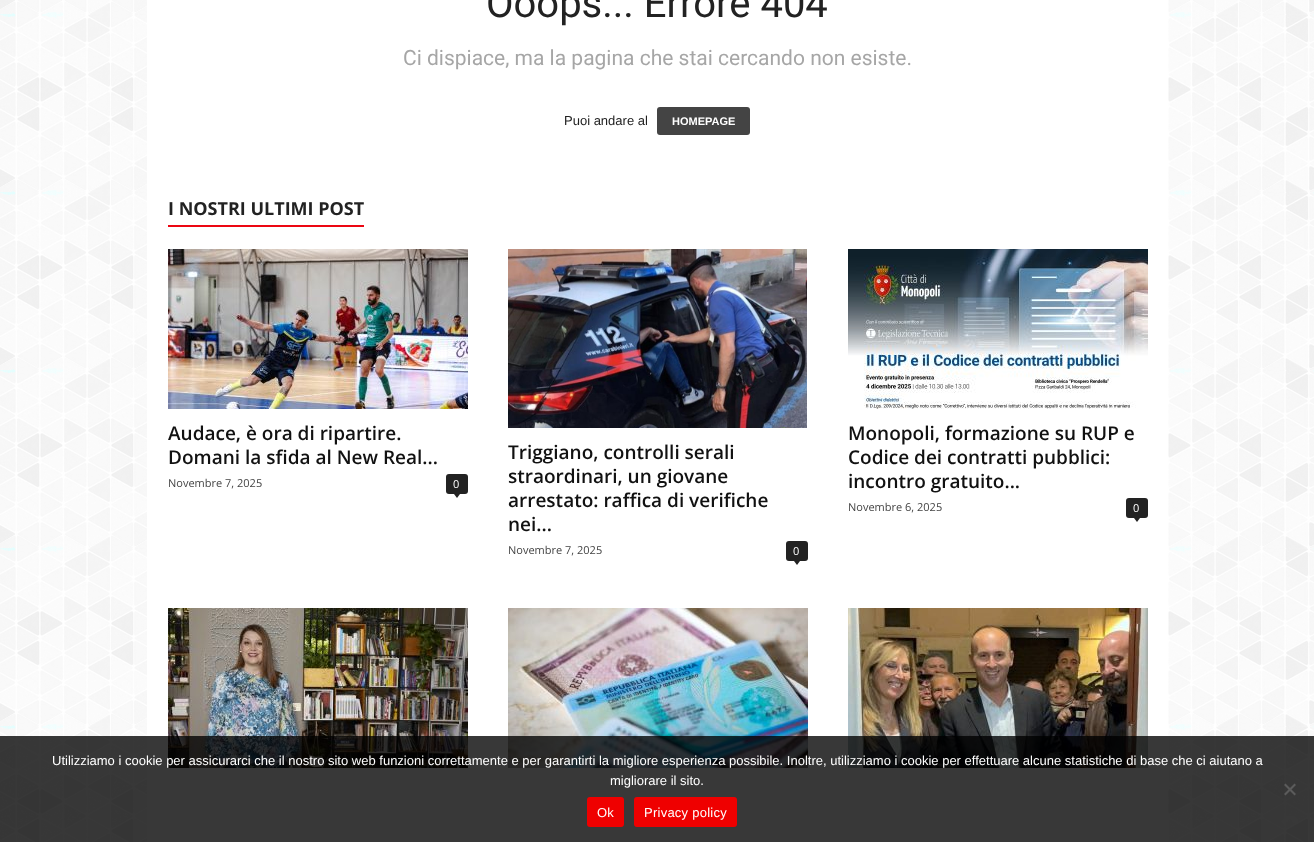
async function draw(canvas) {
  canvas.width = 1314;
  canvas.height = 842;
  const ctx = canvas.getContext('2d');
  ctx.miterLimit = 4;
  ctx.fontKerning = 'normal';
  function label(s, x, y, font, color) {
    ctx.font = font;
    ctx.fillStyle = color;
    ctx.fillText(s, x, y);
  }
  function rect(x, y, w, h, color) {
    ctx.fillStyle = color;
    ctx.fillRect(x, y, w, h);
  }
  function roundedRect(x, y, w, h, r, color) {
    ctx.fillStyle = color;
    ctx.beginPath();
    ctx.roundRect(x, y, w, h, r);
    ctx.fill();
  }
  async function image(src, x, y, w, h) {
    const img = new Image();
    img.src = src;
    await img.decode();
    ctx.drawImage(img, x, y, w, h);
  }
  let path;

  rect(0, 0, 1314, 842, '#fff');
  await image('assets/img1.png', 0, 0, 1314, 842);
  rect(147, 0, 1021, 842, '#fff');
  label('Ooops... Errore 404', 486, 17, '40px Roboto', '#222');
  label('Ci dispiace, ma la pagina che stai cercando non esiste.', 403, 65, '21px Roboto', '#a6a6a6');
  label('Puoi andare al', 564, 125, '13px Liberation Sans', '#222');
  roundedRect(657, 107, 93, 28, 3, '#444');
  label('HOMEPAGE', 672, 125, 'bold 11px Liberation Sans', '#fff');
  label('I NOSTRI ULTIMI POST', 168, 215, 'bold 18px Open Sans', '#222');
  rect(168, 225, 196, 2, '#ec0612');
  await image('assets/img2.png', 168, 249, 300, 160);
  label('Audace, è ora di ripartire.', 168, 440, '600 19px Open Sans', '#111');
  label('Domani la sfida al New Real...', 168, 464, '600 19px Open Sans', '#111');
  label('Novembre 7, 2025', 168, 487, '11px Open Sans', '#444');
  roundedRect(446, 474, 22, 20, 3, '#222');
  label('0', 453, 488, '11px Open Sans', '#fff');
  ctx.fillStyle = '#222';
  path = new Path2D('M454 494H460L457 498Z');
  ctx.fill(path);
  await image('assets/img3.png', 508, 249, 299, 179);
  label('Triggiano, controlli serali', 508, 459, '600 19px Open Sans', '#111');
  label('straordinari, un giovane', 508, 483, '600 19px Open Sans', '#111');
  label('arrestato: raffica di verifiche', 508, 507, '600 19px Open Sans', '#111');
  label('nei...', 508, 531, '600 19px Open Sans', '#111');
  label('Novembre 7, 2025', 508, 554, '11px Open Sans', '#444');
  roundedRect(786, 541, 22, 20, 3, '#222');
  label('0', 793, 555, '11px Open Sans', '#fff');
  ctx.fillStyle = '#222';
  path = new Path2D('M794 561H800L797 565Z');
  ctx.fill(path);
  await image('assets/img4.png', 848, 249, 300, 160);
  label('Monopoli, formazione su RUP e', 848, 440, '600 19px Open Sans', '#111');
  label('Codice dei contratti pubblici:', 848, 464, '600 19px Open Sans', '#111');
  label('incontro gratuito...', 848, 488, '600 19px Open Sans', '#111');
  label('Novembre 6, 2025', 848, 511, '11px Open Sans', '#444');
  roundedRect(1126, 498, 22, 20, 3, '#222');
  label('0', 1133, 512, '11px Open Sans', '#fff');
  ctx.fillStyle = '#222';
  path = new Path2D('M1134 518H1140L1137 522Z');
  ctx.fill(path);
  await image('assets/img5.png', 168, 608, 300, 160);
  await image('assets/img6.png', 508, 608, 300, 160);
  await image('assets/img7.png', 848, 608, 300, 160);
  await image('assets/img8.png', 1281, 816, 17, 8);
  rect(0, 736, 1314, 106, '#000000c7');
  label('Utilizziamo i cookie per assicurarci che il nostro sito web funzioni correttamente e per garantirti la migliore esperienza possibile. Inoltre, utilizziamo i cookie per effettuare alcune statistiche di base che ci aiutano a', 52, 765, '13px Liberation Sans', '#fff');
  label('migliorare il sito.', 610, 785, '13px Liberation Sans', '#fff');
  ctx.fillStyle = '#5b5b5b';
  path = new Path2D('M1294.5 783.5L1296 785L1285.5 795.5L1284 794Z');
  ctx.fill(path);
  path = new Path2D('M1284 785L1285.5 783.5L1296 794L1294.5 795.5Z');
  ctx.fill(path);
  roundedRect(587, 797, 37, 30, 3, '#ef0000');
  ctx.letterSpacing = '0.25px';
  label('Ok', 597, 817, '13px Liberation Sans', '#fff');
  roundedRect(634, 797, 103, 30, 3, '#ef0000');
  label('Privacy policy', 644, 817, '13px Liberation Sans', '#fff');
}

draw(document.querySelector('canvas'));
